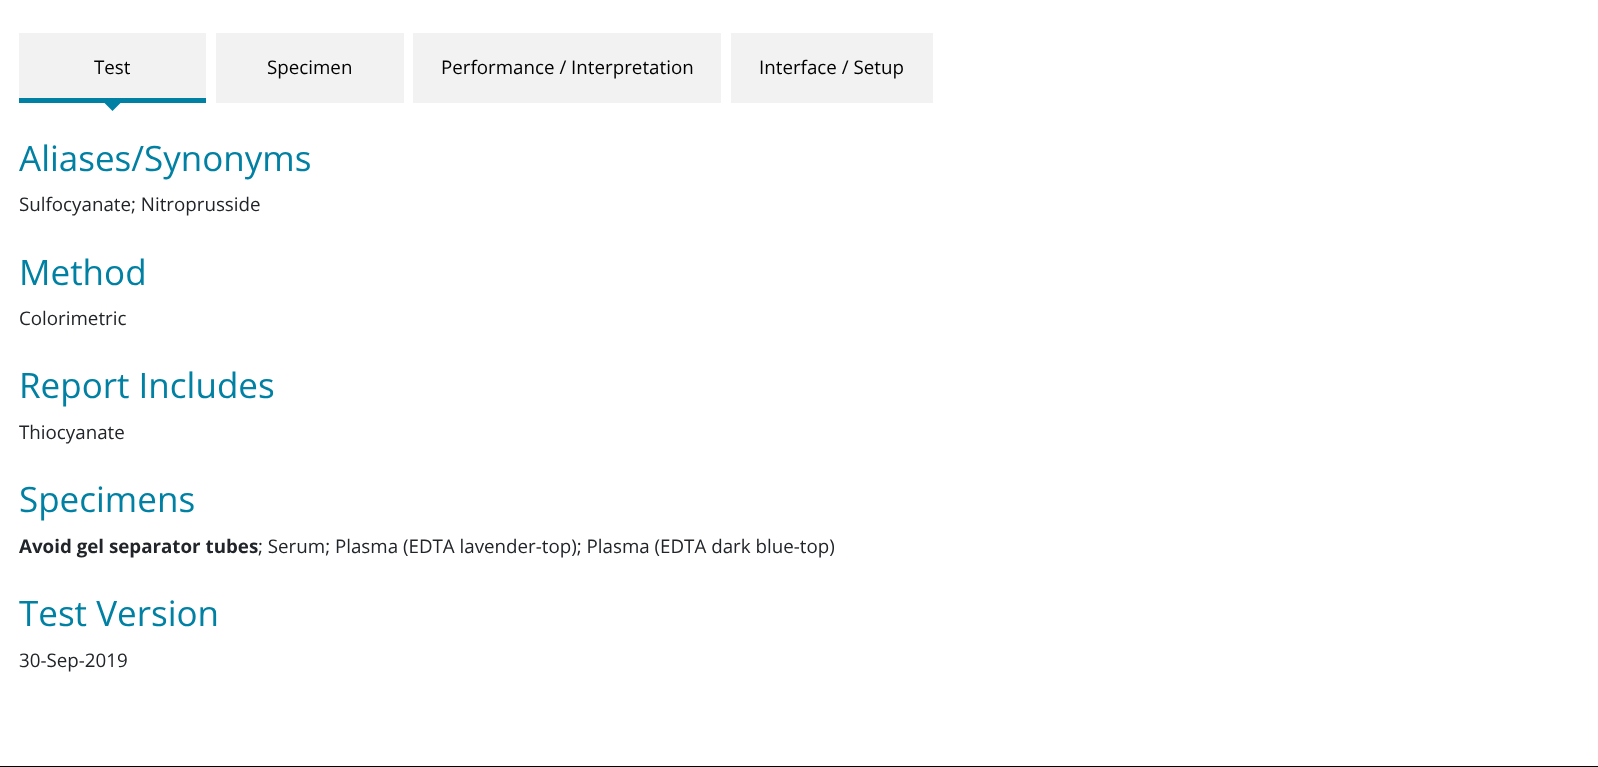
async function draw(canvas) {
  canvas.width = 1598;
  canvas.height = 767;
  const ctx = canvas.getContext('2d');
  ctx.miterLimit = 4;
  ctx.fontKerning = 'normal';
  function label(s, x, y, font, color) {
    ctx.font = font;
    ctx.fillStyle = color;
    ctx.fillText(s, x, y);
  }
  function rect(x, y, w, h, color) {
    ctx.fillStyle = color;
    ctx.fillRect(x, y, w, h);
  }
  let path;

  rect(0, 0, 1598, 767, '#fff');
  rect(19, 33, 187, 65, '#f2f2f2');
  label('Test', 94, 74, '18.75px Open Sans', '#000');
  rect(19, 98, 187, 5, '#0080a3');
  path = new Path2D('M104 102.5H121L112.5 111Z');
  ctx.fill(path);
  rect(216, 33, 188, 70, '#f2f2f2');
  label('Specimen', 267, 74, '18.75px Open Sans', '#000');
  rect(413, 33, 308, 70, '#f2f2f2');
  label('Performance / Interpretation', 441, 74, '18.75px Open Sans', '#000');
  rect(731, 33, 202, 70, '#f2f2f2');
  label('Interface / Setup', 759, 74, '18.75px Open Sans', '#000');
  label('Aliases/Synonyms', 19, 171, '35px Open Sans', '#0080a3');
  label('Sulfocyanate; Nitroprusside', 19, 211, '18.75px Open Sans', '#212529');
  label('Method', 19, 285, '35px Open Sans', '#0080a3');
  label('Colorimetric', 19, 325, '18.75px Open Sans', '#212529');
  label('Report Includes', 19, 398, '35px Open Sans', '#0080a3');
  label('Thiocyanate', 19, 439, '18.75px Open Sans', '#212529');
  label('Specimens', 19, 512, '35px Open Sans', '#0080a3');
  label('Avoid gel separator tubes', 19, 553, 'bold 18.75px Open Sans', '#212529');
  label('; Serum; Plasma (EDTA lavender-top); Plasma (EDTA dark blue-top)', 258, 553, '18.75px Open Sans', '#212529');
  label('Test Version', 19, 626, '35px Open Sans', '#0080a3');
  label('30-Sep-2019', 19, 667, '18.75px Open Sans', '#212529');
  rect(0, 766, 1598, 1, '#000');
}

draw(document.querySelector('canvas'));
